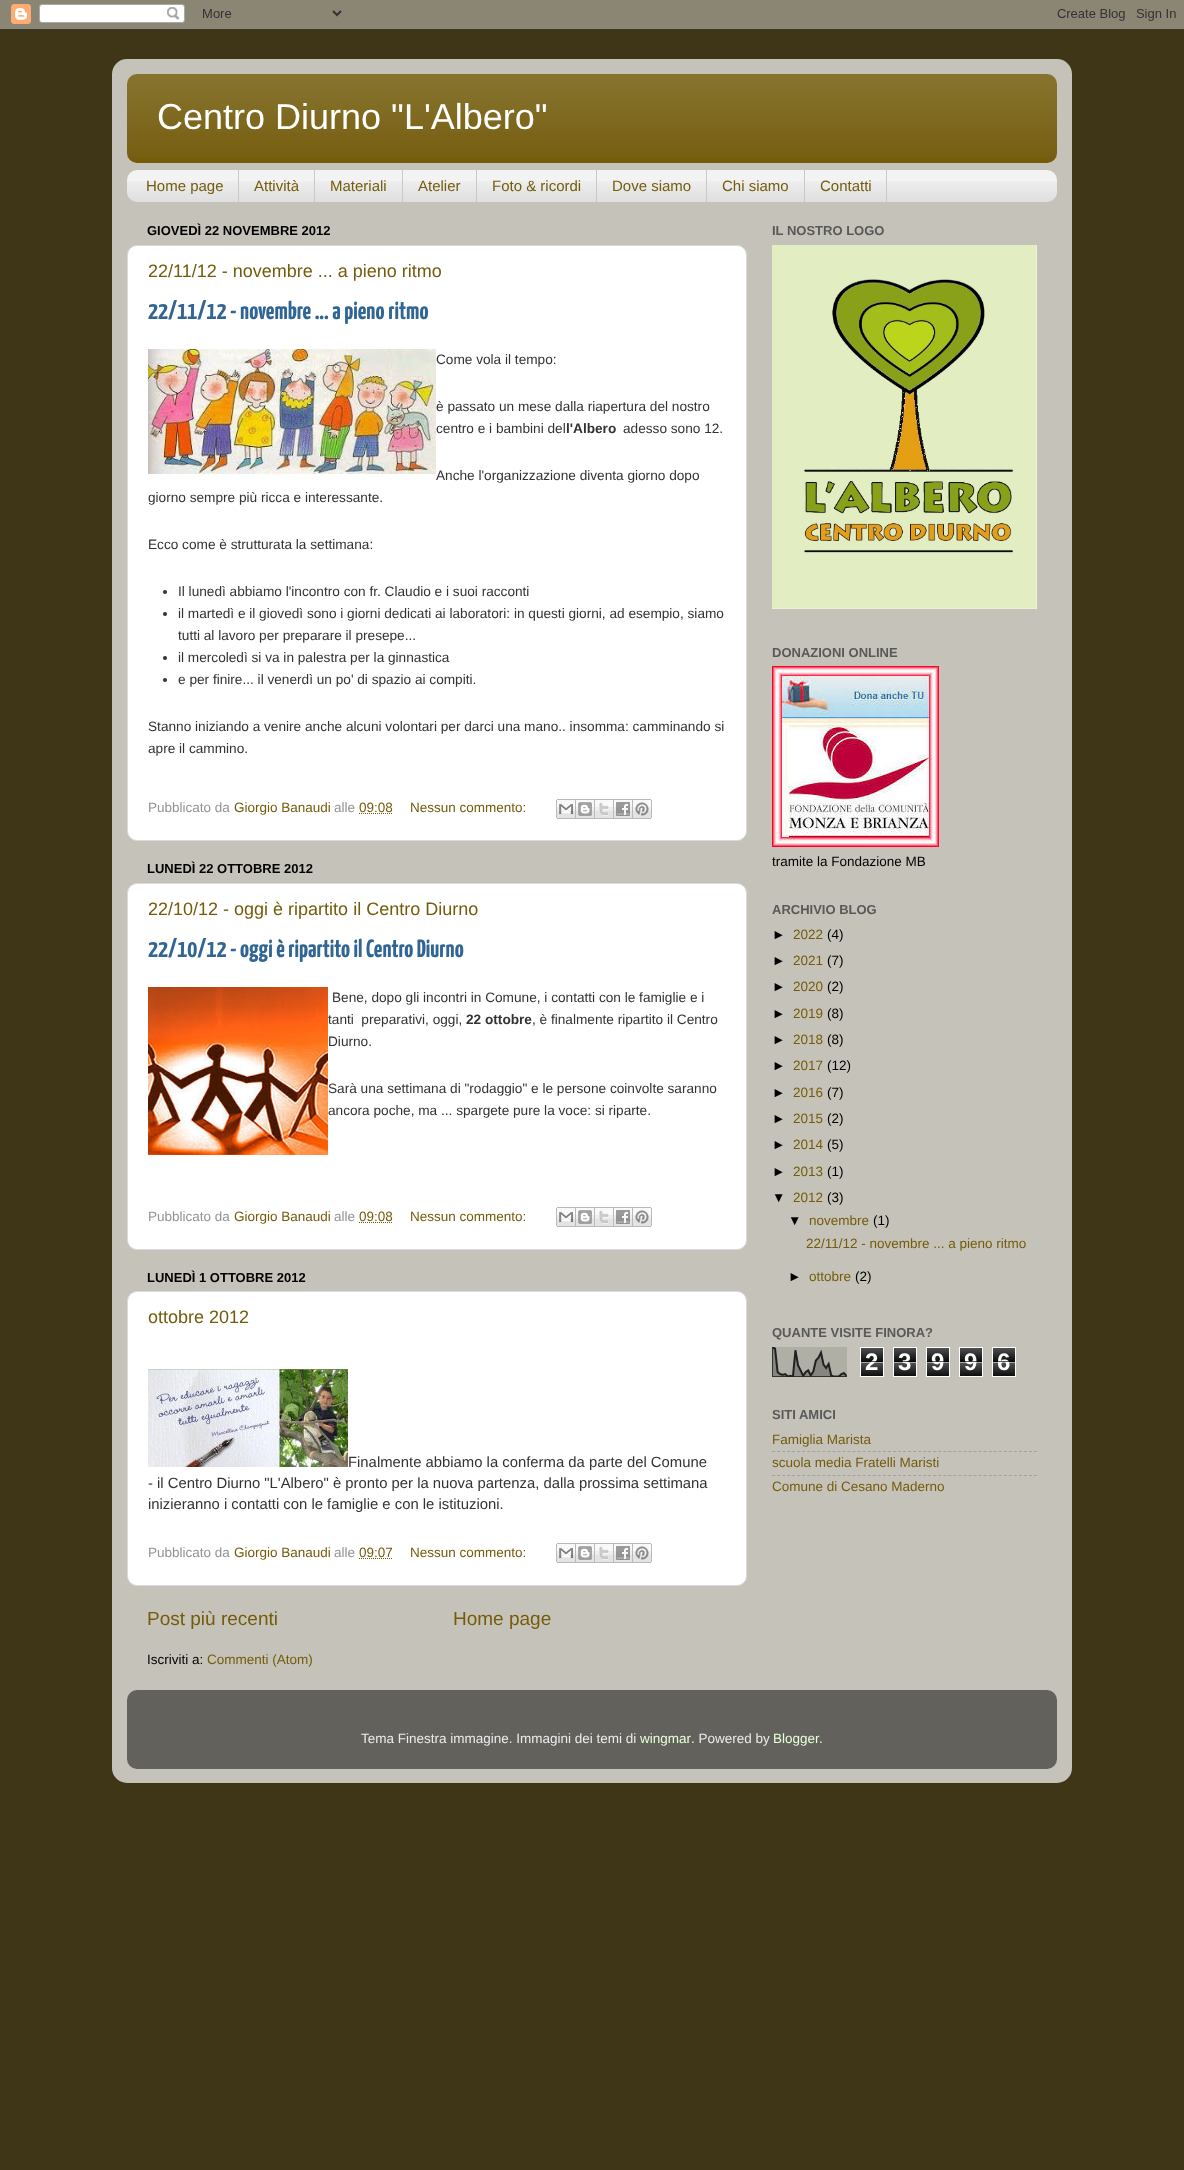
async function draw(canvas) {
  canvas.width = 1184;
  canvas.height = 2170;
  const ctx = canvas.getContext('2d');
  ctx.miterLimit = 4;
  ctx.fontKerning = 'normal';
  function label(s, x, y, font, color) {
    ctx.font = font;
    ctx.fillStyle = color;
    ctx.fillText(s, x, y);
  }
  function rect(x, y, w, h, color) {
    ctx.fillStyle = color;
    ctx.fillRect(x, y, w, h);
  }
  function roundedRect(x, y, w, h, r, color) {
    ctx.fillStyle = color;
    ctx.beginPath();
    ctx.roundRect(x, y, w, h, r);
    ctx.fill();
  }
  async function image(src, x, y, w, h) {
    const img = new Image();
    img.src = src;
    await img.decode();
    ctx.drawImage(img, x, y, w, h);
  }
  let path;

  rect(0, 0, 1184, 2170, '#3f3617');
  await image('assets/img1.png', 0, 0, 1184, 29);
  await image('assets/img2.png', 112, 59, 960, 1724);
  roundedRect(127, 74, 930, 89, 10, '#745c0c');
  await image('assets/img3.png', 127, 74, 930, 84);
  label('Centro Diurno "L\'Albero"', 157, 129, '36px Liberation Sans', '#fff');
  roundedRect(127, 170, 930, 32, 10, '#f3f3f3');
  await image('assets/img4.png', 127, 181, 930, 21);
  rect(238, 170, 1, 32, '#c9c9c9');
  label('Home page', 146, 191, '15px Liberation Sans', '#745c0c');
  rect(314, 170, 1, 32, '#c9c9c9');
  label('Attività', 254, 191, '15px Liberation Sans', '#745c0c');
  rect(402, 170, 1, 32, '#c9c9c9');
  label('Materiali', 330, 191, '15px Liberation Sans', '#745c0c');
  rect(476, 170, 1, 32, '#c9c9c9');
  label('Atelier', 418, 191, '15px Liberation Sans', '#745c0c');
  rect(596, 170, 1, 32, '#c9c9c9');
  label('Foto & ricordi', 492, 191, '15px Liberation Sans', '#745c0c');
  rect(706, 170, 1, 32, '#c9c9c9');
  label('Dove siamo', 612, 191, '15px Liberation Sans', '#745c0c');
  rect(804, 170, 1, 32, '#c9c9c9');
  label('Chi siamo', 722, 191, '15px Liberation Sans', '#745c0c');
  rect(886, 170, 1, 32, '#c9c9c9');
  label('Contatti', 820, 191, '15px Liberation Sans', '#745c0c');
  label('GIOVEDÌ 22 NOVEMBRE 2012', 147, 235, 'bold 13px Liberation Sans', '#000');
  ctx.fillStyle = '#fff';
  ctx.beginPath();
  ctx.roundRect(127.5, 245.5, 619, 595, 9.5);
  ctx.fill();
  ctx.strokeStyle = '#dadada';
  ctx.stroke();
  label('22/11/12 - novembre ... a pieno ritmo', 148, 277, '18px Liberation Sans', '#745c0c');
  label('22/11/12 - novembre ... a pieno ritmo', 148, 319, 'bold 25px Yanone Kaffeesatz', '#316594');
  await image('assets/img5.png', 148, 349, 288, 125);
  label('Come vola il tempo:', 436, 364, '13.65px Liberation Sans', '#333');
  label('è passato un mese dalla riapertura del nostro', 436, 411, '13.65px Liberation Sans', '#333');
  label('centro e i bambini del', 436, 433, '13.65px Liberation Sans', '#333');
  label('l\'Albero', 566, 433, 'bold 13.65px Liberation Sans', '#333');
  label('adesso sono 12.', 623, 433, '13.65px Liberation Sans', '#333');
  label('Anche l\'organizzazione diventa giorno dopo', 436, 480, '13.65px Liberation Sans', '#333');
  label('giorno sempre più ricca e interessante.', 148, 502, '13.65px Liberation Sans', '#333');
  label('Ecco come è strutturata la settimana:', 148, 549, '13.65px Liberation Sans', '#333');
  ctx.beginPath();
  ctx.arc(165, 592, 2, 0, 2 * Math.PI);
  ctx.fill();
  label('Il lunedì abbiamo l\'incontro con fr. Claudio e i suoi racconti', 178, 596, '13.65px Liberation Sans', '#333');
  ctx.beginPath();
  ctx.arc(165, 614, 2, 0, 2 * Math.PI);
  ctx.fill();
  label('il martedì e il giovedì sono i giorni dedicati ai laboratori: in questi giorni, ad esempio, siamo', 178, 618, '13.65px Liberation Sans', '#333');
  label('tutti al lavoro per preparare il presepe...', 178, 640, '13.65px Liberation Sans', '#333');
  ctx.beginPath();
  ctx.arc(165, 658, 2, 0, 2 * Math.PI);
  ctx.fill();
  label('il mercoledì si va in palestra per la ginnastica', 178, 662, '13.65px Liberation Sans', '#333');
  ctx.beginPath();
  ctx.arc(165, 680, 2, 0, 2 * Math.PI);
  ctx.fill();
  label('e per finire... il venerdì un po\' di spazio ai compiti.', 178, 684, '13.65px Liberation Sans', '#333');
  label('Stanno iniziando a venire anche alcuni volontari per darci una mano.. insomma: camminando si', 148, 731, '13.65px Liberation Sans', '#333');
  label('apre il cammino.', 148, 753, '13.65px Liberation Sans', '#333');
  label('Pubblicato da', 148, 812, '13.5px Liberation Sans', '#939393');
  label('Giorgio Banaudi', 234, 812, '13.5px Liberation Sans', '#745c0c');
  label('alle', 334, 812, '13.5px Liberation Sans', '#939393');
  label('09:08', 359, 812, '13.5px Liberation Sans', '#745c0c');
  path = new Path2D('M359 813.5H392.5');
  ctx.strokeStyle = '#745c0c';
  ctx.setLineDash([1, 1]);
  ctx.stroke(path);
  label('Nessun commento:', 410, 812, '13.5px Liberation Sans', '#745c0c');
  await image('assets/img6.png', 556, 799, 20, 20);
  await image('assets/img7.png', 576, 799, 19, 20);
  await image('assets/img8.png', 595, 799, 19, 20);
  await image('assets/img9.png', 614, 799, 19, 20);
  await image('assets/img10.png', 633, 799, 19, 20);
  label('LUNEDÌ 22 OTTOBRE 2012', 147, 873, 'bold 13px Liberation Sans', '#000');
  ctx.fillStyle = '#fff';
  ctx.beginPath();
  ctx.roundRect(127.5, 883.5, 619, 366, 9.5);
  ctx.fill();
  ctx.strokeStyle = '#dadada';
  ctx.setLineDash([]);
  ctx.stroke();
  label('22/10/12 - oggi è ripartito il Centro Diurno', 148, 915, '18px Liberation Sans', '#745c0c');
  label('22/10/12 - oggi è ripartito il Centro Diurno', 148, 957, 'bold 25px Yanone Kaffeesatz', '#316594');
  await image('assets/img11.png', 148, 987, 180, 168);
  label('Bene, dopo gli incontri in Comune, i contatti con le famiglie e i', 332, 1002, '13.65px Liberation Sans', '#333');
  label('tanti  preparativi, oggi,', 328, 1024, '13.65px Liberation Sans', '#333');
  label('22 ottobre', 466, 1024, 'bold 13.65px Liberation Sans', '#333');
  label(', è finalmente ripartito il Centro', 532, 1024, '13.65px Liberation Sans', '#333');
  label('Diurno.', 328, 1046, '13.65px Liberation Sans', '#333');
  label('Sarà una settimana di "rodaggio" e le persone coinvolte saranno', 328, 1093, '13.65px Liberation Sans', '#333');
  label('ancora poche, ma ... spargete pure la voce: si riparte.', 328, 1115, '13.65px Liberation Sans', '#333');
  label('Pubblicato da', 148, 1221, '13.5px Liberation Sans', '#939393');
  label('Giorgio Banaudi', 234, 1221, '13.5px Liberation Sans', '#745c0c');
  label('alle', 334, 1221, '13.5px Liberation Sans', '#939393');
  label('09:08', 359, 1221, '13.5px Liberation Sans', '#745c0c');
  path = new Path2D('M359 1222.5H392.5');
  ctx.strokeStyle = '#745c0c';
  ctx.setLineDash([1, 1]);
  ctx.stroke(path);
  label('Nessun commento:', 410, 1221, '13.5px Liberation Sans', '#745c0c');
  await image('assets/img6.png', 556, 1207, 20, 20);
  await image('assets/img7.png', 576, 1207, 19, 20);
  await image('assets/img8.png', 595, 1207, 19, 20);
  await image('assets/img9.png', 614, 1207, 19, 20);
  await image('assets/img10.png', 633, 1207, 19, 20);
  label('LUNEDÌ 1 OTTOBRE 2012', 147, 1282, 'bold 13px Liberation Sans', '#000');
  ctx.fillStyle = '#fff';
  ctx.beginPath();
  ctx.roundRect(127.5, 1291.5, 619, 294, 9.5);
  ctx.fill();
  ctx.strokeStyle = '#dadada';
  ctx.setLineDash([]);
  ctx.stroke();
  label('ottobre 2012', 148, 1323, '18px Liberation Sans', '#745c0c');
  await image('assets/img12.png', 148, 1369, 200, 98);
  label('Finalmente abbiamo la conferma da parte del Comune', 348, 1467, '14.85px Liberation Sans', '#333');
  label('- il Centro Diurno "L\'Albero" è pronto per la nuova partenza, dalla prossima settimana', 148, 1488, '14.85px Liberation Sans', '#333');
  label('inizieranno i contatti con le famiglie e con le istituzioni.', 148, 1509, '14.85px Liberation Sans', '#333');
  label('Pubblicato da', 148, 1557, '13.5px Liberation Sans', '#939393');
  label('Giorgio Banaudi', 234, 1557, '13.5px Liberation Sans', '#745c0c');
  label('alle', 334, 1557, '13.5px Liberation Sans', '#939393');
  label('09:07', 359, 1557, '13.5px Liberation Sans', '#745c0c');
  path = new Path2D('M359 1558.5H392.5');
  ctx.strokeStyle = '#745c0c';
  ctx.setLineDash([1, 1]);
  ctx.stroke(path);
  label('Nessun commento:', 410, 1557, '13.5px Liberation Sans', '#745c0c');
  await image('assets/img6.png', 556, 1543, 20, 20);
  await image('assets/img7.png', 576, 1543, 19, 20);
  await image('assets/img8.png', 595, 1543, 19, 20);
  await image('assets/img9.png', 614, 1543, 19, 20);
  await image('assets/img10.png', 633, 1543, 19, 20);
  label('Post più recenti', 147, 1625, '19px Liberation Sans', '#745c0c');
  label('Home page', 453, 1625, '19px Liberation Sans', '#745c0c');
  label('Iscriviti a:', 147, 1664, '13.5px Liberation Sans', '#000');
  label('Commenti (Atom)', 207, 1664, '13.5px Liberation Sans', '#745c0c');
  label('IL NOSTRO LOGO', 772, 235, 'bold 13px Liberation Sans', '#595959');
  await image('assets/img13.png', 772, 245, 265, 364);
  label('DONAZIONI ONLINE', 772, 657, 'bold 13px Liberation Sans', '#595959');
  await image('assets/img14.png', 772, 666, 167, 181);
  label('tramite la Fondazione MB', 772, 866, '13.5px Liberation Sans', '#000');
  label('ARCHIVIO BLOG', 772, 914, 'bold 13px Liberation Sans', '#595959');
  label('►', 772, 939, '13.5px Liberation Sans', '#000');
  label('2022', 793, 939, '13.5px Liberation Sans', '#745c0c');
  label('(4)', 827, 939, '13.5px Liberation Sans', '#000');
  label('►', 772, 965, '13.5px Liberation Sans', '#000');
  label('2021', 793, 965, '13.5px Liberation Sans', '#745c0c');
  label('(7)', 827, 965, '13.5px Liberation Sans', '#000');
  label('►', 772, 991, '13.5px Liberation Sans', '#000');
  label('2020', 793, 991, '13.5px Liberation Sans', '#745c0c');
  label('(2)', 827, 991, '13.5px Liberation Sans', '#000');
  label('►', 772, 1018, '13.5px Liberation Sans', '#000');
  label('2019', 793, 1018, '13.5px Liberation Sans', '#745c0c');
  label('(8)', 827, 1018, '13.5px Liberation Sans', '#000');
  label('►', 772, 1044, '13.5px Liberation Sans', '#000');
  label('2018', 793, 1044, '13.5px Liberation Sans', '#745c0c');
  label('(8)', 827, 1044, '13.5px Liberation Sans', '#000');
  label('►', 772, 1070, '13.5px Liberation Sans', '#000');
  label('2017', 793, 1070, '13.5px Liberation Sans', '#745c0c');
  label('(12)', 827, 1070, '13.5px Liberation Sans', '#000');
  label('►', 772, 1097, '13.5px Liberation Sans', '#000');
  label('2016', 793, 1097, '13.5px Liberation Sans', '#745c0c');
  label('(7)', 827, 1097, '13.5px Liberation Sans', '#000');
  label('►', 772, 1123, '13.5px Liberation Sans', '#000');
  label('2015', 793, 1123, '13.5px Liberation Sans', '#745c0c');
  label('(2)', 827, 1123, '13.5px Liberation Sans', '#000');
  label('►', 772, 1149, '13.5px Liberation Sans', '#000');
  label('2014', 793, 1149, '13.5px Liberation Sans', '#745c0c');
  label('(5)', 827, 1149, '13.5px Liberation Sans', '#000');
  label('►', 772, 1176, '13.5px Liberation Sans', '#000');
  label('2013', 793, 1176, '13.5px Liberation Sans', '#745c0c');
  label('(1)', 827, 1176, '13.5px Liberation Sans', '#000');
  label('▼', 772, 1202, '13.5px Liberation Sans', '#000');
  label('2012', 793, 1202, '13.5px Liberation Sans', '#745c0c');
  label('(3)', 827, 1202, '13.5px Liberation Sans', '#000');
  label('▼', 788, 1225, '13.5px Liberation Sans', '#000');
  label('novembre', 809, 1225, '13.5px Liberation Sans', '#745c0c');
  label('(1)', 873, 1225, '13.5px Liberation Sans', '#000');
  label('22/11/12 - novembre ... a pieno ritmo', 806, 1248, '13.5px Liberation Sans', '#745c0c');
  label('►', 788, 1281, '13.5px Liberation Sans', '#000');
  label('ottobre', 809, 1281, '13.5px Liberation Sans', '#745c0c');
  label('(2)', 855, 1281, '13.5px Liberation Sans', '#000');
  label('QUANTE VISITE FINORA?', 772, 1337, 'bold 13px Liberation Sans', '#595959');
  await image('assets/img15.png', 772, 1347, 75, 30);
  await image('assets/img16.png', 861, 1348, 22, 28);
  ctx.strokeStyle = '#fff';
  ctx.setLineDash([]);
  ctx.strokeRect(860.5, 1347.5, 23, 29);
  label('2', 865, 1370, 'bold 24px Liberation Sans', '#fff');
  rect(861, 1361, 22, 1, '#000000a6');
  rect(861, 1362, 22, 1, '#ffffffa6');
  await image('assets/img16.png', 894, 1348, 22, 28);
  ctx.strokeRect(893.5, 1347.5, 23, 29);
  label('3', 898, 1370, 'bold 24px Liberation Sans', '#fff');
  rect(894, 1361, 22, 1, '#000000a6');
  rect(894, 1362, 22, 1, '#ffffffa6');
  await image('assets/img16.png', 927, 1348, 22, 28);
  ctx.strokeRect(926.5, 1347.5, 23, 29);
  label('9', 931, 1370, 'bold 24px Liberation Sans', '#fff');
  rect(927, 1361, 22, 1, '#000000a6');
  rect(927, 1362, 22, 1, '#ffffffa6');
  await image('assets/img16.png', 960, 1348, 22, 28);
  ctx.strokeRect(959.5, 1347.5, 23, 29);
  label('9', 964, 1370, 'bold 24px Liberation Sans', '#fff');
  rect(960, 1361, 22, 1, '#000000a6');
  rect(960, 1362, 22, 1, '#ffffffa6');
  await image('assets/img16.png', 993, 1348, 22, 28);
  ctx.strokeRect(992.5, 1347.5, 23, 29);
  label('6', 997, 1370, 'bold 24px Liberation Sans', '#fff');
  rect(993, 1361, 22, 1, '#000000a6');
  rect(993, 1362, 22, 1, '#ffffffa6');
  label('SITI AMICI', 772, 1419, 'bold 13px Liberation Sans', '#595959');
  label('Famiglia Marista', 772, 1444, '13.5px Liberation Sans', '#745c0c');
  path = new Path2D('M772 1451.5H1037');
  ctx.strokeStyle = '#a3a29d';
  ctx.setLineDash([3, 2.04]);
  ctx.stroke(path);
  label('scuola media Fratelli Maristi', 772, 1467, '13.5px Liberation Sans', '#745c0c');
  path = new Path2D('M772 1475.5H1037');
  ctx.stroke(path);
  label('Comune di Cesano Maderno', 772, 1491, '13.5px Liberation Sans', '#745c0c');
  await image('assets/img17.png', 127, 1690, 930, 79);
  label('Tema Finestra immagine. Immagini dei temi di', 361, 1743, '13.5px Liberation Sans', '#ebebeb');
  label('wingmar', 640, 1743, '13.5px Liberation Sans', '#e6ffd8');
  label('. Powered by', 691, 1743, '13.5px Liberation Sans', '#ebebeb');
  label('Blogger', 773, 1743, '13.5px Liberation Sans', '#e6ffd8');
  label('.', 819, 1743, '13.5px Liberation Sans', '#ebebeb');
}

draw(document.querySelector('canvas'));
